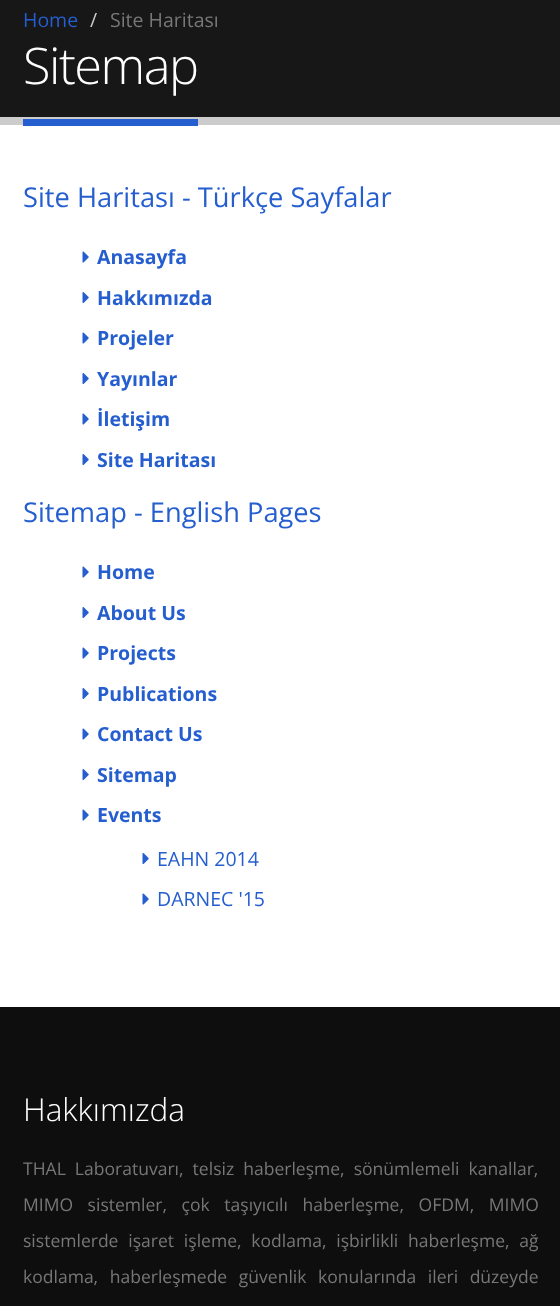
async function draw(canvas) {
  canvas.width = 560;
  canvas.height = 1306;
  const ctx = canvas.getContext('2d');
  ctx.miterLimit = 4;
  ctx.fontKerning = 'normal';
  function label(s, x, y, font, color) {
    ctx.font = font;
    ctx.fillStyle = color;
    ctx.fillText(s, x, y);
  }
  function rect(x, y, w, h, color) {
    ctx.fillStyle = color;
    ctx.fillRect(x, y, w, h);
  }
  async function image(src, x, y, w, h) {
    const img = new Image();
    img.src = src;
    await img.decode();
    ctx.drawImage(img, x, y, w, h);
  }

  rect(0, 0, 560, 1306, '#fff');
  rect(0, 0, 560, 117, '#171717');
  rect(0, 117, 560, 8, '#ccc');
  label('Home', 23, 27, '19.5px Open Sans', '#255ecf');
  label('/', 90, 27, '19.5px Open Sans', '#ccc');
  label('Site Haritası', 110, 27, '19.5px Open Sans', '#777');
  rect(23, 119, 175, 7, '#255ecf');
  ctx.letterSpacing = '-1.5px';
  label('Sitemap', 23, 84, '300 50.5px Open Sans', '#fff');
  ctx.letterSpacing = '0px';
  label('Site Haritası - Türkçe Sayfalar', 23, 207, '27.25px Open Sans', '#255ecf');
  await image('assets/img1.png', 82, 251, 7, 12);
  label('Anasayfa', 97, 264, 'bold 19.5px Open Sans', '#255ecf');
  await image('assets/img2.png', 82, 292, 7, 12);
  label('Hakkımızda', 97, 305, 'bold 19.5px Open Sans', '#255ecf');
  await image('assets/img1.png', 82, 332, 7, 12);
  label('Projeler', 97, 345, 'bold 19.5px Open Sans', '#255ecf');
  await image('assets/img2.png', 82, 373, 7, 12);
  label('Yayınlar', 97, 386, 'bold 19.5px Open Sans', '#255ecf');
  await image('assets/img1.png', 82, 413, 7, 12);
  label('İletişim', 97, 426, 'bold 19.5px Open Sans', '#255ecf');
  await image('assets/img2.png', 82, 454, 7, 12);
  label('Site Haritası', 97, 467, 'bold 19.5px Open Sans', '#255ecf');
  label('Sitemap - English Pages', 23, 522, '27.25px Open Sans', '#255ecf');
  await image('assets/img1.png', 82, 566, 7, 12);
  label('Home', 97, 579, 'bold 19.5px Open Sans', '#255ecf');
  await image('assets/img2.png', 82, 607, 7, 12);
  label('About Us', 97, 620, 'bold 19.5px Open Sans', '#255ecf');
  await image('assets/img1.png', 82, 647, 7, 12);
  label('Projects', 97, 660, 'bold 19.5px Open Sans', '#255ecf');
  await image('assets/img2.png', 82, 688, 7, 12);
  label('Publications', 97, 701, 'bold 19.5px Open Sans', '#255ecf');
  await image('assets/img1.png', 82, 728, 7, 12);
  label('Contact Us', 97, 741, 'bold 19.5px Open Sans', '#255ecf');
  await image('assets/img2.png', 82, 769, 7, 12);
  label('Sitemap', 97, 782, 'bold 19.5px Open Sans', '#255ecf');
  await image('assets/img1.png', 82, 809, 7, 12);
  label('Events', 97, 822, 'bold 19.5px Open Sans', '#255ecf');
  await image('assets/img2.png', 142, 853, 7, 12);
  label('EAHN 2014', 157, 866, '19.5px Open Sans', '#255ecf');
  await image('assets/img1.png', 142, 893, 7, 12);
  label('DARNEC \'15', 157, 906, '19.5px Open Sans', '#255ecf');
  rect(0, 1007, 560, 299, '#0e0e0e');
  label('Hakkımızda', 23, 1121, '300 31.5px Open Sans', '#fff');
  ctx.wordSpacing = '4.5px';
  label('THAL Laboratuvarı, telsiz haberleşme, sönümlemeli kanallar,', 23, 1175, '17.55px Open Sans', '#777');
  ctx.wordSpacing = '10px';
  label('MIMO sistemler, çok taşıyıcılı haberleşme, OFDM, MIMO', 23, 1211, '17.55px Open Sans', '#777');
  ctx.wordSpacing = '5.25px';
  label('sistemlerde işaret işleme, kodlama, işbirlikli haberleşme, ağ', 23, 1247, '17.55px Open Sans', '#777');
  ctx.wordSpacing = '7px';
  label('kodlama, haberleşmede güvenlik konularında ileri düzeyde', 23, 1283, '17.55px Open Sans', '#777');
}

draw(document.querySelector('canvas'));
